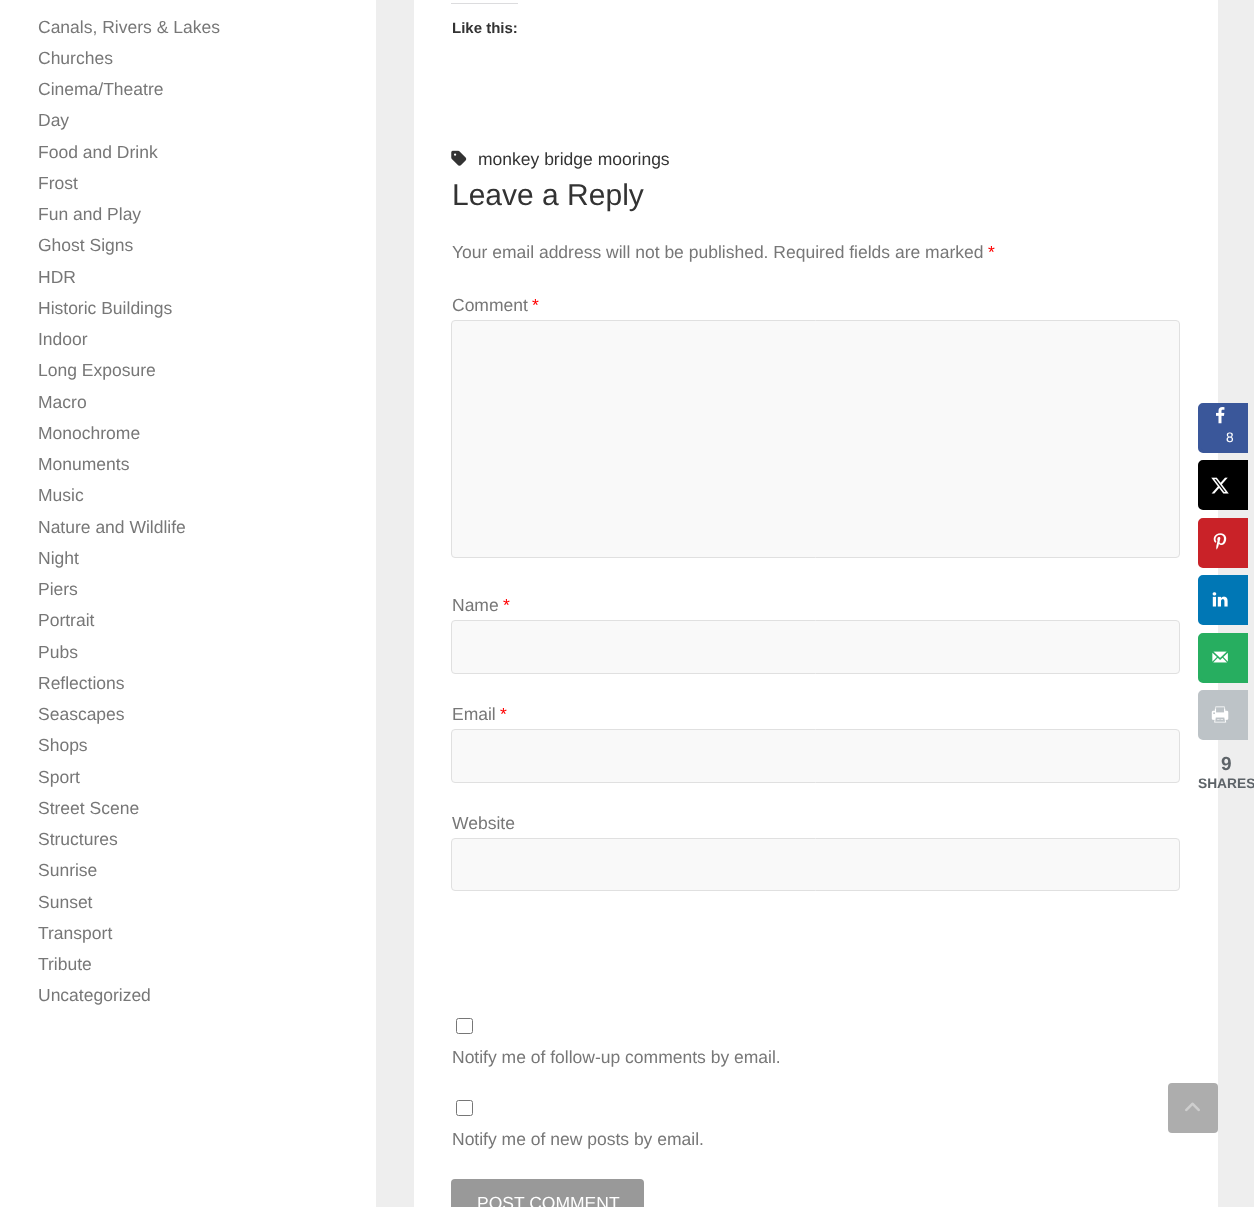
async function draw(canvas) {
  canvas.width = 1254;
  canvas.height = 1207;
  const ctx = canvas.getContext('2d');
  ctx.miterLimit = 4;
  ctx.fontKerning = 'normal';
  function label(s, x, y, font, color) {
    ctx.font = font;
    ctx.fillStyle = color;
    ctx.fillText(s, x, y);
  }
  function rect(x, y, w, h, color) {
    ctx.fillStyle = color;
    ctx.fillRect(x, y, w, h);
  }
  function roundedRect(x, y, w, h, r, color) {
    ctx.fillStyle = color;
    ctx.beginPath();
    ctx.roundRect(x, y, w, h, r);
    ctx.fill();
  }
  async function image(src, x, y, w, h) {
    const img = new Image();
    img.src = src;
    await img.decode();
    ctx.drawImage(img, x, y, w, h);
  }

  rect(0, 0, 1254, 1207, '#eee');
  rect(0, 0, 376, 1207, '#fff');
  label('Canals, Rivers & Lakes', 38, 33, '17.5px Liberation Sans', '#777');
  label('Churches', 38, 64, '17.5px Liberation Sans', '#777');
  label('Cinema/Theatre', 38, 95, '17.5px Liberation Sans', '#777');
  label('Day', 38, 126, '17.5px Liberation Sans', '#777');
  label('Food and Drink', 38, 158, '17.5px Liberation Sans', '#777');
  label('Frost', 38, 189, '17.5px Liberation Sans', '#777');
  label('Fun and Play', 38, 220, '17.5px Liberation Sans', '#777');
  label('Ghost Signs', 38, 251, '17.5px Liberation Sans', '#777');
  label('HDR', 38, 283, '17.5px Liberation Sans', '#777');
  label('Historic Buildings', 38, 314, '17.5px Liberation Sans', '#777');
  label('Indoor', 38, 345, '17.5px Liberation Sans', '#777');
  label('Long Exposure', 38, 376, '17.5px Liberation Sans', '#777');
  label('Macro', 38, 408, '17.5px Liberation Sans', '#777');
  label('Monochrome', 38, 439, '17.5px Liberation Sans', '#777');
  label('Monuments', 38, 470, '17.5px Liberation Sans', '#777');
  label('Music', 38, 501, '17.5px Liberation Sans', '#777');
  label('Nature and Wildlife', 38, 533, '17.5px Liberation Sans', '#777');
  label('Night', 38, 564, '17.5px Liberation Sans', '#777');
  label('Piers', 38, 595, '17.5px Liberation Sans', '#777');
  label('Portrait', 38, 626, '17.5px Liberation Sans', '#777');
  label('Pubs', 38, 658, '17.5px Liberation Sans', '#777');
  label('Reflections', 38, 689, '17.5px Liberation Sans', '#777');
  label('Seascapes', 38, 720, '17.5px Liberation Sans', '#777');
  label('Shops', 38, 751, '17.5px Liberation Sans', '#777');
  label('Sport', 38, 783, '17.5px Liberation Sans', '#777');
  label('Street Scene', 38, 814, '17.5px Liberation Sans', '#777');
  label('Structures', 38, 845, '17.5px Liberation Sans', '#777');
  label('Sunrise', 38, 876, '17.5px Liberation Sans', '#777');
  label('Sunset', 38, 908, '17.5px Liberation Sans', '#777');
  label('Transport', 38, 939, '17.5px Liberation Sans', '#777');
  label('Tribute', 38, 970, '17.5px Liberation Sans', '#777');
  label('Uncategorized', 38, 1001, '17.5px Liberation Sans', '#777');
  rect(414, 0, 804, 1207, '#fff');
  rect(451, 3, 67, 1, '#dcdcde');
  label('Like this:', 452, 33, 'bold 15px Liberation Sans', '#333');
  await image('assets/img1.png', 451, 150, 16, 16);
  label('monkey bridge moorings', 478, 165, '17.5px Liberation Sans', '#333');
  label('Leave a Reply', 452, 205, '30px Liberation Sans', '#333');
  label('Your email address will not be published. Required fields are marked', 452, 258, '17.5px Liberation Sans', '#777');
  label('*', 988, 258, '17.5px Liberation Sans', '#f00');
  label('Comment', 452, 311, '17.5px Liberation Sans', '#777');
  label('*', 532, 311, '17.5px Liberation Sans', '#f00');
  ctx.fillStyle = '#f9f9f9';
  ctx.beginPath();
  ctx.roundRect(451.5, 320.5, 728, 237, 3.5);
  ctx.fill();
  ctx.strokeStyle = '#e0e0e0';
  ctx.stroke();
  label('Name', 452, 611, '17.5px Liberation Sans', '#777');
  label('*', 503, 611, '17.5px Liberation Sans', '#f00');
  ctx.fillStyle = '#f9f9f9';
  ctx.beginPath();
  ctx.roundRect(451.5, 620.5, 728, 53, 3.5);
  ctx.fill();
  ctx.stroke();
  label('Email', 452, 720, '17.5px Liberation Sans', '#777');
  label('*', 500, 720, '17.5px Liberation Sans', '#f00');
  ctx.fillStyle = '#f9f9f9';
  ctx.beginPath();
  ctx.roundRect(451.5, 729.5, 728, 53, 3.5);
  ctx.fill();
  ctx.stroke();
  label('Website', 452, 829, '17.5px Liberation Sans', '#777');
  ctx.fillStyle = '#f9f9f9';
  ctx.beginPath();
  ctx.roundRect(451.5, 838.5, 728, 52, 3.5);
  ctx.fill();
  ctx.stroke();
  ctx.beginPath();
  ctx.roundRect(456.5, 1018.5, 16, 15, 2);
  ctx.strokeStyle = '#767676';
  ctx.stroke();
  label('Notify me of follow-up comments by email.', 452, 1063, '17.5px Liberation Sans', '#777');
  ctx.beginPath();
  ctx.roundRect(456.5, 1100.5, 16, 15, 2);
  ctx.stroke();
  label('Notify me of new posts by email.', 452, 1145, '17.5px Liberation Sans', '#777');
  roundedRect(451, 1179, 193, 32, 4, '#999');
  label('POST COMMENT', 477, 1209, '17.5px Liberation Sans', '#fff');
  roundedRect(1168, 1083, 50, 50, 4, '#adadad');
  await image('assets/img2.png', 1185, 1102, 15, 10);
  ctx.fillStyle = '#3a579a';
  ctx.beginPath();
  ctx.roundRect(1199.5, 404.5, 47, 47, [3.5, 0, 0, 3.5]);
  ctx.fill();
  ctx.strokeStyle = '#3a579a';
  ctx.lineWidth = 3;
  ctx.stroke();
  await image('assets/img3.png', 1216, 407, 9, 17);
  label('8', 1226, 442, '13.75px Liberation Sans', '#fff');
  ctx.fillStyle = '#000';
  ctx.beginPath();
  ctx.roundRect(1199.5, 461.5, 47, 47, [3.5, 0, 0, 3.5]);
  ctx.fill();
  ctx.strokeStyle = '#000';
  ctx.stroke();
  await image('assets/img4.png', 1211, 477, 18, 17);
  ctx.fillStyle = '#c92228';
  ctx.beginPath();
  ctx.roundRect(1199.5, 519.5, 47, 47, [3.5, 0, 0, 3.5]);
  ctx.fill();
  ctx.strokeStyle = '#c92228';
  ctx.stroke();
  await image('assets/img5.png', 1213, 533, 14, 17);
  ctx.fillStyle = '#0077b5';
  ctx.beginPath();
  ctx.roundRect(1199.5, 576.5, 47, 47, [3.5, 0, 0, 3.5]);
  ctx.fill();
  ctx.strokeStyle = '#0077b5';
  ctx.stroke();
  await image('assets/img6.png', 1212, 592, 16, 15);
  ctx.fillStyle = '#27ae60';
  ctx.beginPath();
  ctx.roundRect(1199.5, 634.5, 47, 47, [3.5, 0, 0, 3.5]);
  ctx.fill();
  ctx.strokeStyle = '#27ae60';
  ctx.stroke();
  await image('assets/img7.png', 1212, 651, 16, 12);
  ctx.fillStyle = '#bdc3c7';
  ctx.beginPath();
  ctx.roundRect(1199.5, 691.5, 47, 47, [3.5, 0, 0, 3.5]);
  ctx.fill();
  ctx.strokeStyle = '#bdc3c7';
  ctx.stroke();
  await image('assets/img8.png', 1211, 706, 18, 17);
  label('9', 1221, 770, 'bold 19px Liberation Sans', '#5d6368');
  label('SHARES', 1198, 788, 'bold 13.75px Liberation Sans', '#5d6368');
}

draw(document.querySelector('canvas'));
